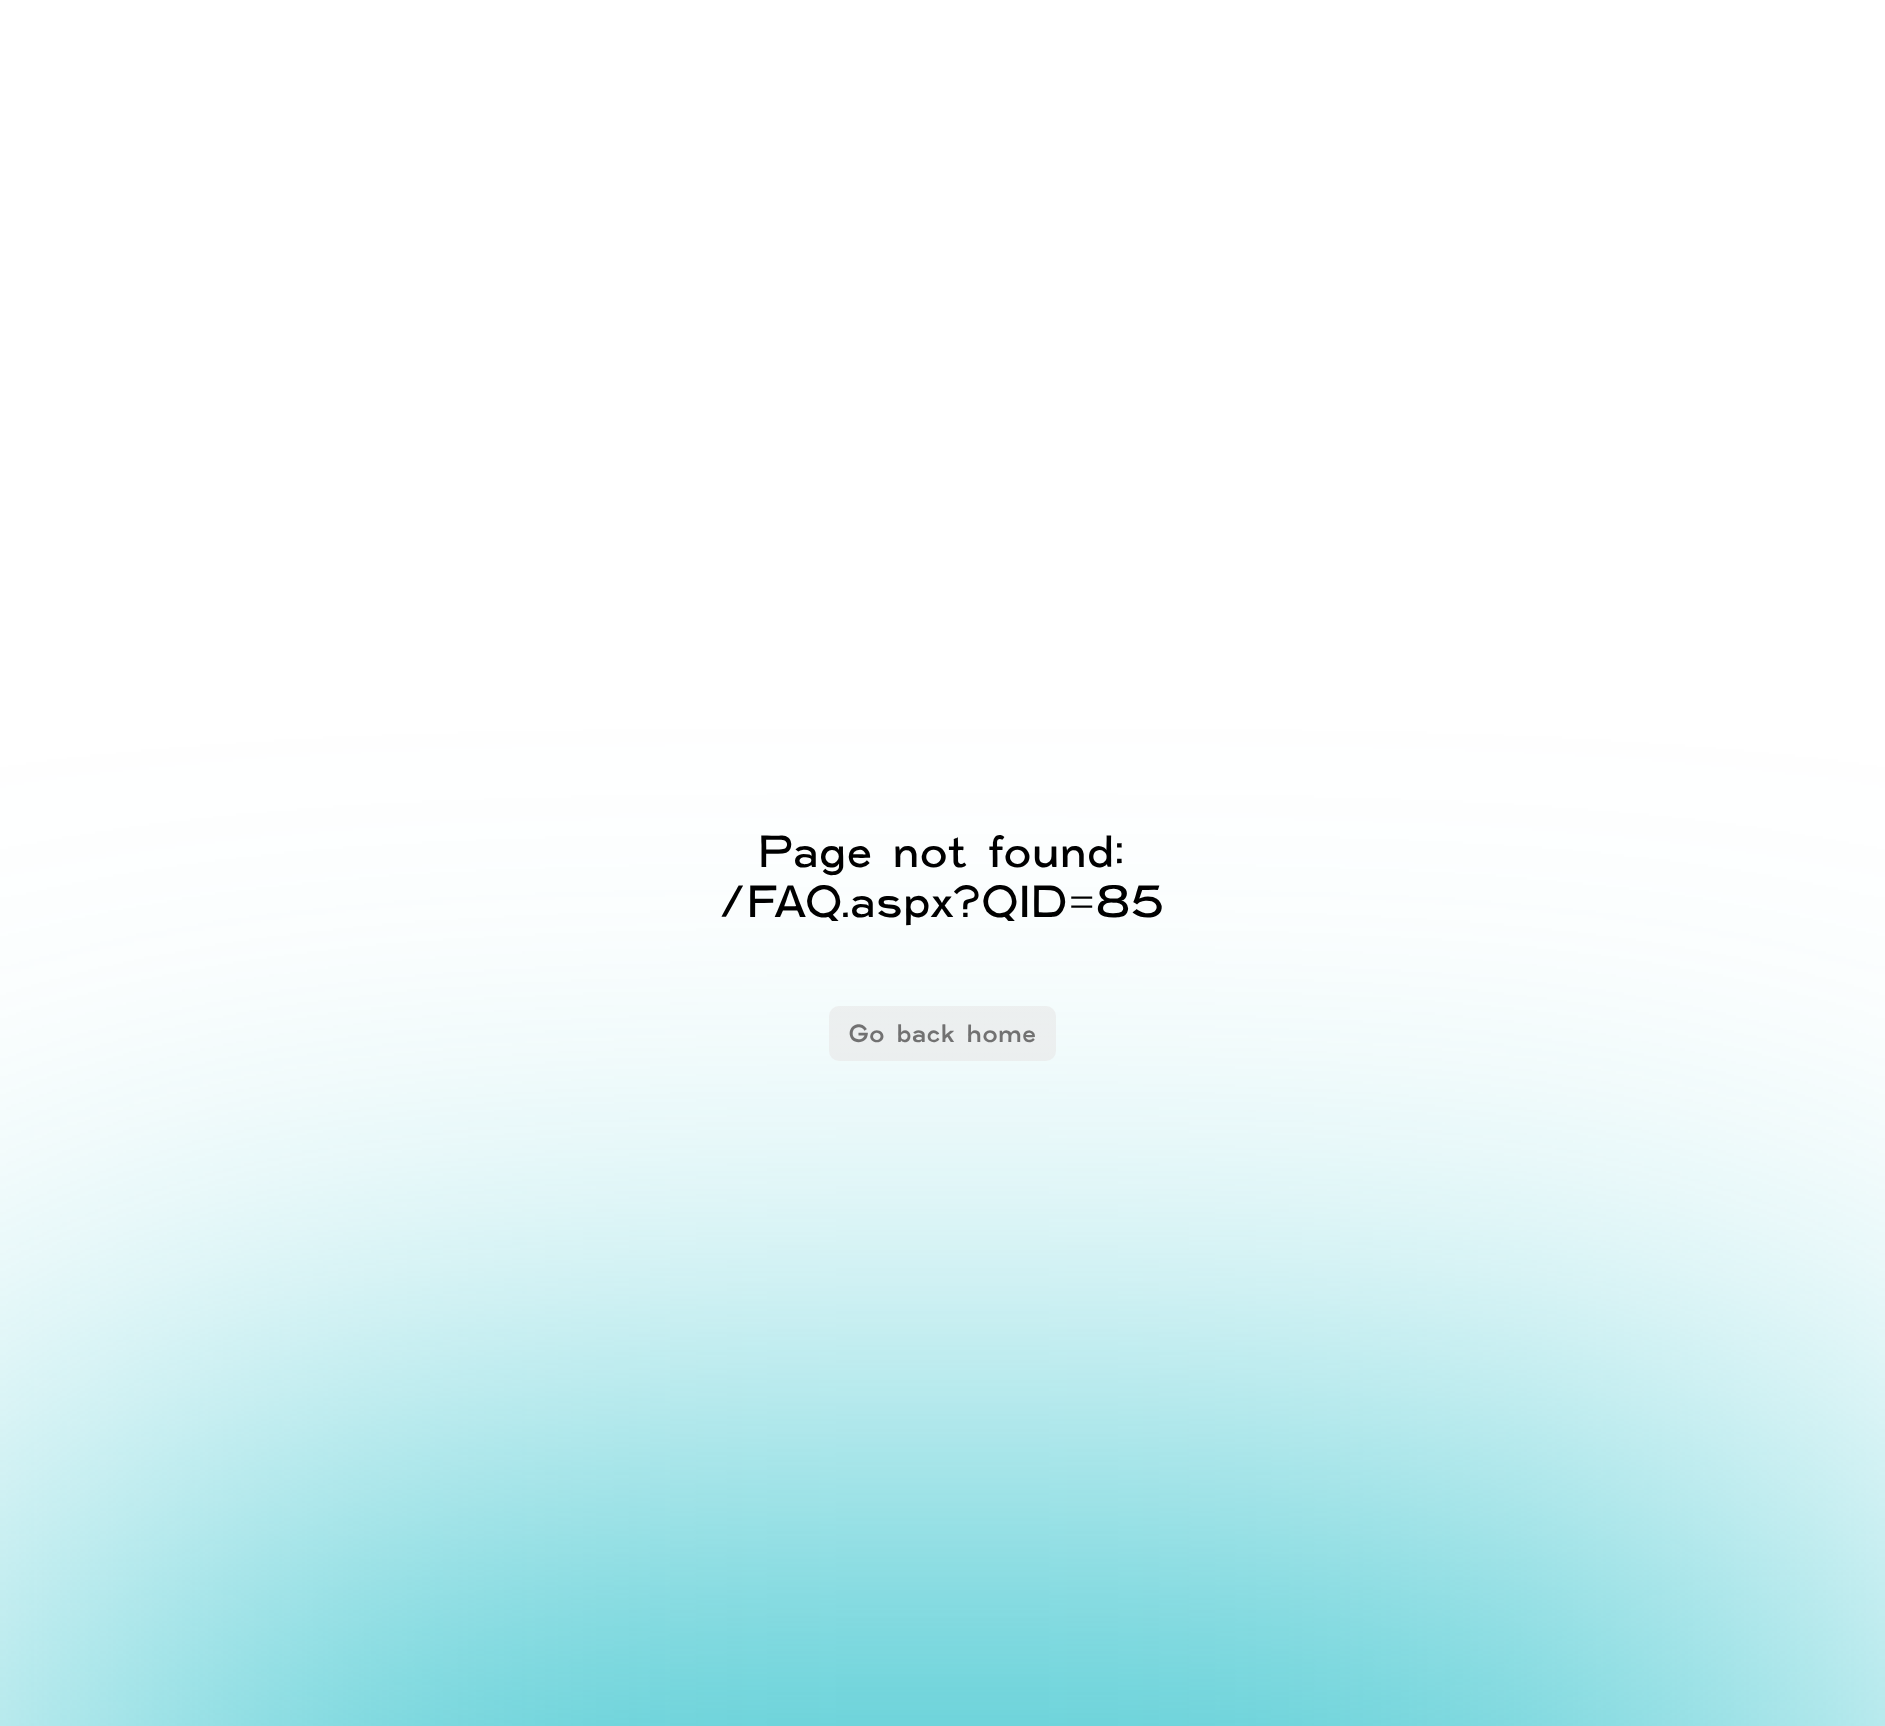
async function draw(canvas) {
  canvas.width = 1885;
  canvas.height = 1726;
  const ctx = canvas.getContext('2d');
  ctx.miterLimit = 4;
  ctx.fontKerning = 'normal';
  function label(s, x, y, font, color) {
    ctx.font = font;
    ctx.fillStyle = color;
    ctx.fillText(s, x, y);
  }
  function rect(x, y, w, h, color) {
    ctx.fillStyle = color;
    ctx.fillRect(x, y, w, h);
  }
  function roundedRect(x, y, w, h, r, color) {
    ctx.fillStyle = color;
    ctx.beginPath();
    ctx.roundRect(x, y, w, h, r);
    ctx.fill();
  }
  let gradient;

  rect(0, 0, 1885, 1726, '#fff');
  ctx.fillStyle = '#1bbbc6';
  ctx.filter = 'blur(345px)';
  ctx.beginPath();
  ctx.rect(0, 1554, 1885, 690);
  ctx.fill();
  ctx.filter = 'none';
  ctx.letterSpacing = '2.25px';
  label('Page not found:', 759, 867, '300 45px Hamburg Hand', '#000');
  label('/FAQ.aspx?QID', 719, 917, '300 45px Hamburg Hand', '#000');
  label('=', 1069, 917, '45px Liberation Serif', '#000');
  label('85', 1096, 917, '300 45px Hamburg Hand', '#000');
  roundedRect(829, 1006, 227, 55, 10, '#ffffff4d');
  ctx.letterSpacing = '1.25px';
  label('Go back home', 849, 1042, '25px Hamburg Hand', '#000');
  gradient = ctx.createLinearGradient(829, 1034, 1739, 1034);
  gradient.addColorStop(0, '#e2e2e280');
  gradient.addColorStop(0.25, '#e2e2e280');
  gradient.addColorStop(0.5, '#00dc8280');
  gradient.addColorStop(0.75, '#36e4da80');
  gradient.addColorStop(1, '#0047e180');
  ctx.fillStyle = gradient;
  ctx.beginPath();
  ctx.roundRect(829, 1006, 227, 55, 10);
  ctx.fill();
}

draw(document.querySelector('canvas'));
